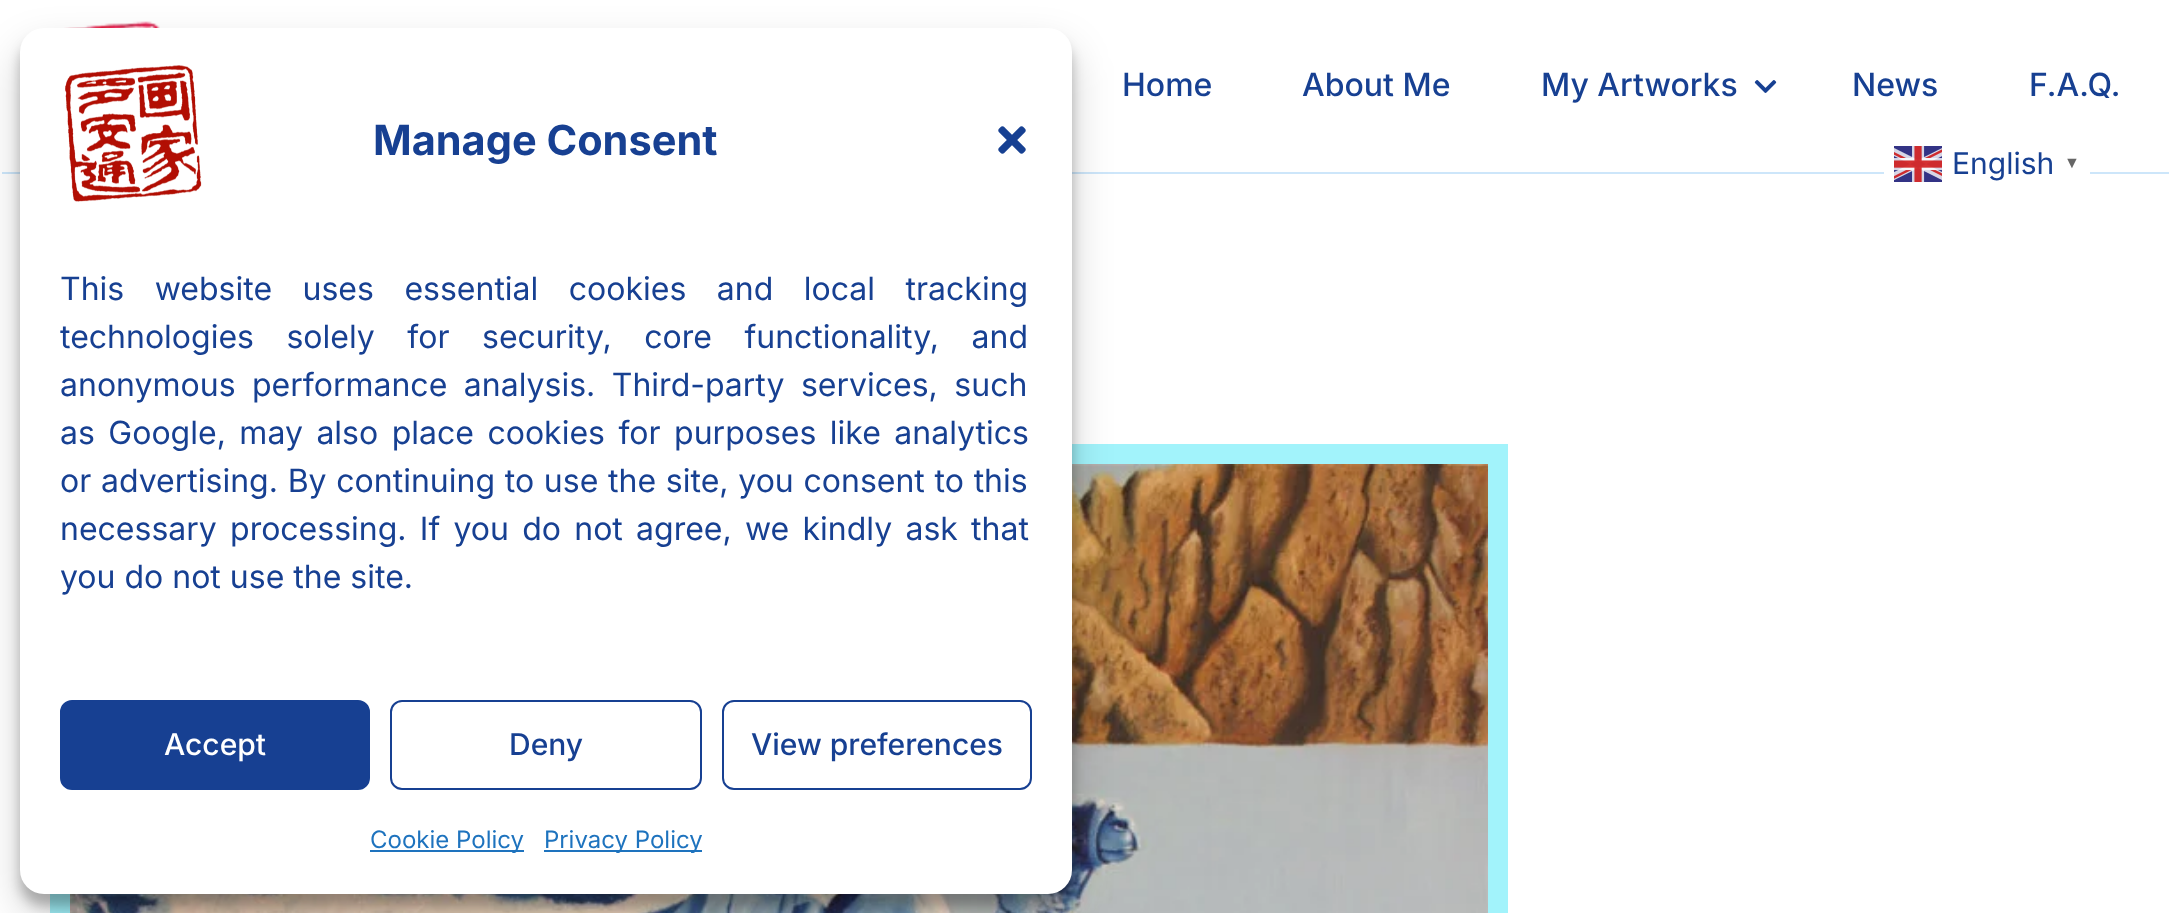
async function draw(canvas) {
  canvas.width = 2169;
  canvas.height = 913;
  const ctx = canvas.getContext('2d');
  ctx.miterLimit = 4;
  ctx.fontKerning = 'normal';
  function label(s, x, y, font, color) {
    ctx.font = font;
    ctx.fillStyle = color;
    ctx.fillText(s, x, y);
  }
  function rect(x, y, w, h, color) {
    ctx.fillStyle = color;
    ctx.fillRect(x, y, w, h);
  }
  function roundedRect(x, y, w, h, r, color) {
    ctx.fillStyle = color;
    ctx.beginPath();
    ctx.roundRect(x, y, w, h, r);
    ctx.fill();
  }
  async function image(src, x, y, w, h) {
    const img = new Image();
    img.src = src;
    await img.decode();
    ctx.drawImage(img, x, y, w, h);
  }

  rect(0, 0, 2169, 913, '#fff');
  rect(2, 172, 2167, 2, '#cde6fa');
  await image('assets/img1.png', 64, 21, 96, 7);
  label('Home', 1122, 96, '500 32px Inter', '#174092');
  label('About Me', 1302, 96, '500 32px Inter', '#174092');
  label('My Artworks', 1541, 96, '500 32px Inter', '#174092');
  await image('assets/img2.png', 1754, 80, 23, 13);
  label('News', 1852, 96, '500 32px Inter', '#174092');
  label('F.A.Q.', 2029, 96, '500 32px Inter', '#174092');
  rect(50, 444, 1458, 469, '#a2f3fb');
  await image('assets/img3.png', 70, 464, 1418, 449);
  ctx.fillStyle = '#0000003b';
  ctx.filter = 'blur(6px)';
  ctx.beginPath();
  ctx.roundRect(20, 40, 1052, 866, 24);
  ctx.fill();
  ctx.filter = 'none';
  ctx.fillStyle = '#00000030';
  ctx.filter = 'blur(20px)';
  ctx.beginPath();
  ctx.roundRect(20, 48, 1052, 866, 24);
  ctx.fill();
  ctx.filter = 'none';
  roundedRect(20, 28, 1052, 866, 24, '#fff');
  await image('assets/img4.png', 65, 65, 137, 137);
  label('Manage Consent', 373, 155, 'bold 41.5px Inter', '#174092');
  await image('assets/img5.png', 998, 126, 28, 28);
  ctx.wordSpacing = '21.5px';
  label('This website uses essential cookies and local tracking', 60, 300, '32px Inter', '#174092');
  ctx.wordSpacing = '23.5px';
  label('technologies solely for security, core functionality, and', 60, 348, '32px Inter', '#174092');
  ctx.wordSpacing = '7.5px';
  label('anonymous performance analysis. Third-party services, such', 60, 396, '32px Inter', '#174092');
  ctx.wordSpacing = '4.5px';
  label('as Google, may also place cookies for purposes like analytics', 60, 444, '32px Inter', '#174092');
  ctx.wordSpacing = '0.75px';
  label('or advertising. By continuing to use the site, you consent to this', 60, 492, '32px Inter', '#174092');
  ctx.wordSpacing = '4.25px';
  label('necessary processing. If you do not agree, we kindly ask that', 60, 540, '32px Inter', '#174092');
  ctx.wordSpacing = '0px';
  label('you do not use the site.', 60, 588, '32px Inter', '#174092');
  ctx.beginPath();
  ctx.roundRect(61, 701, 308, 88, 11);
  ctx.fill();
  ctx.strokeStyle = '#174092';
  ctx.lineWidth = 2;
  ctx.stroke();
  label('Accept', 164, 755, '500 30px Inter', '#fff');
  ctx.beginPath();
  ctx.roundRect(391, 701, 310, 88, 11);
  ctx.stroke();
  label('Deny', 509, 755, '500 30px Inter', '#174092');
  ctx.beginPath();
  ctx.roundRect(723, 701, 308, 88, 11);
  ctx.stroke();
  label('View preferences', 751, 755, '500 30px Inter', '#174092');
  rect(370, 850, 154, 2, '#1e73be');
  label('Cookie Policy', 370, 848, '24px Inter', '#1e73be');
  rect(544, 850, 158, 2, '#1e73be');
  label('Privacy Policy', 544, 848, '24px Inter', '#1e73be');
  rect(1884, 172, 206, 2, '#fff');
  await image('assets/img6.png', 1894, 146, 48, 36);
  label('English', 1952, 174, '30px Inter', '#174092');
  label('▼', 2064, 168, 'bold 16px Liberation Sans', '#666');
}

draw(document.querySelector('canvas'));
